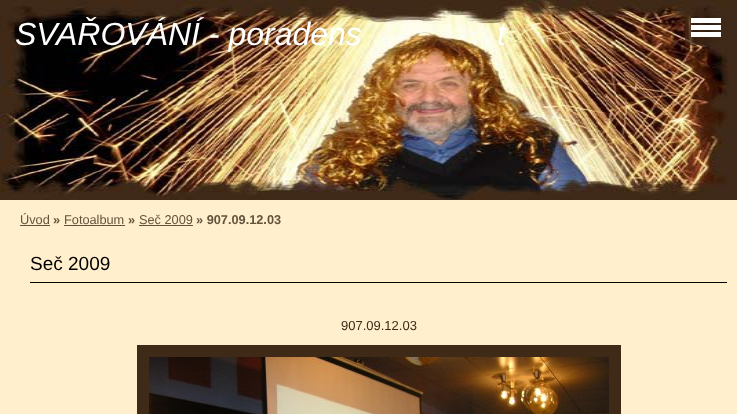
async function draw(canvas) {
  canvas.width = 737;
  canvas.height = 414;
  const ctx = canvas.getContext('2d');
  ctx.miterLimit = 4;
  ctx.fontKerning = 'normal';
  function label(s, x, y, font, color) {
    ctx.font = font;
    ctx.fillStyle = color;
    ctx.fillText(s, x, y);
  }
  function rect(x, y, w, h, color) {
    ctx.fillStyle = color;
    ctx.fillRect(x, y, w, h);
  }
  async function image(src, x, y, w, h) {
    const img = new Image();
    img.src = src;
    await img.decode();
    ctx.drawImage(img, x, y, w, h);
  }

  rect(0, 0, 737, 414, '#ffefcc');
  await image('assets/img1.png', 0, 0, 737, 200);
  label('SVAŘOVÁNÍ - poradens', 15, 45, 'italic 32px Liberation Sans', '#fff');
  label('t', 497, 45, 'italic 32px Liberation Sans', '#fff');
  rect(685, 10, 42, 35, '#3f2a18b3');
  rect(691, 18, 30, 5, '#fff');
  rect(691, 25, 30, 5, '#fff');
  rect(691, 32, 30, 5, '#fff');
  label('Úvod', 20, 224, '12.75px Liberation Sans', '#63533d');
  rect(20, 225, 30, 1, '#63533d');
  label('»', 53, 224, 'bold 12.75px Liberation Sans', '#63533d');
  label('Fotoalbum', 64, 224, '12.75px Liberation Sans', '#63533d');
  rect(64, 225, 61, 1, '#63533d');
  label('»', 128, 224, 'bold 12.75px Liberation Sans', '#63533d');
  label('Seč 2009', 139, 224, '12.75px Liberation Sans', '#63533d');
  rect(139, 225, 54, 1, '#63533d');
  label('» 907.09.12.03', 196, 224, 'bold 12.75px Liberation Sans', '#63533d');
  rect(30, 282, 697, 1, '#000');
  label('Seč 2009', 30, 270, '19px Liberation Sans', '#000');
  label('907.09.12.03', 341, 330, '13px Liberation Sans', '#3f2917');
  ctx.strokeStyle = '#3f2917';
  ctx.lineWidth = 12;
  ctx.strokeRect(143, 351, 472, 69);
  await image('assets/img2.png', 149, 357, 460, 57);
}

draw(document.querySelector('canvas'));
